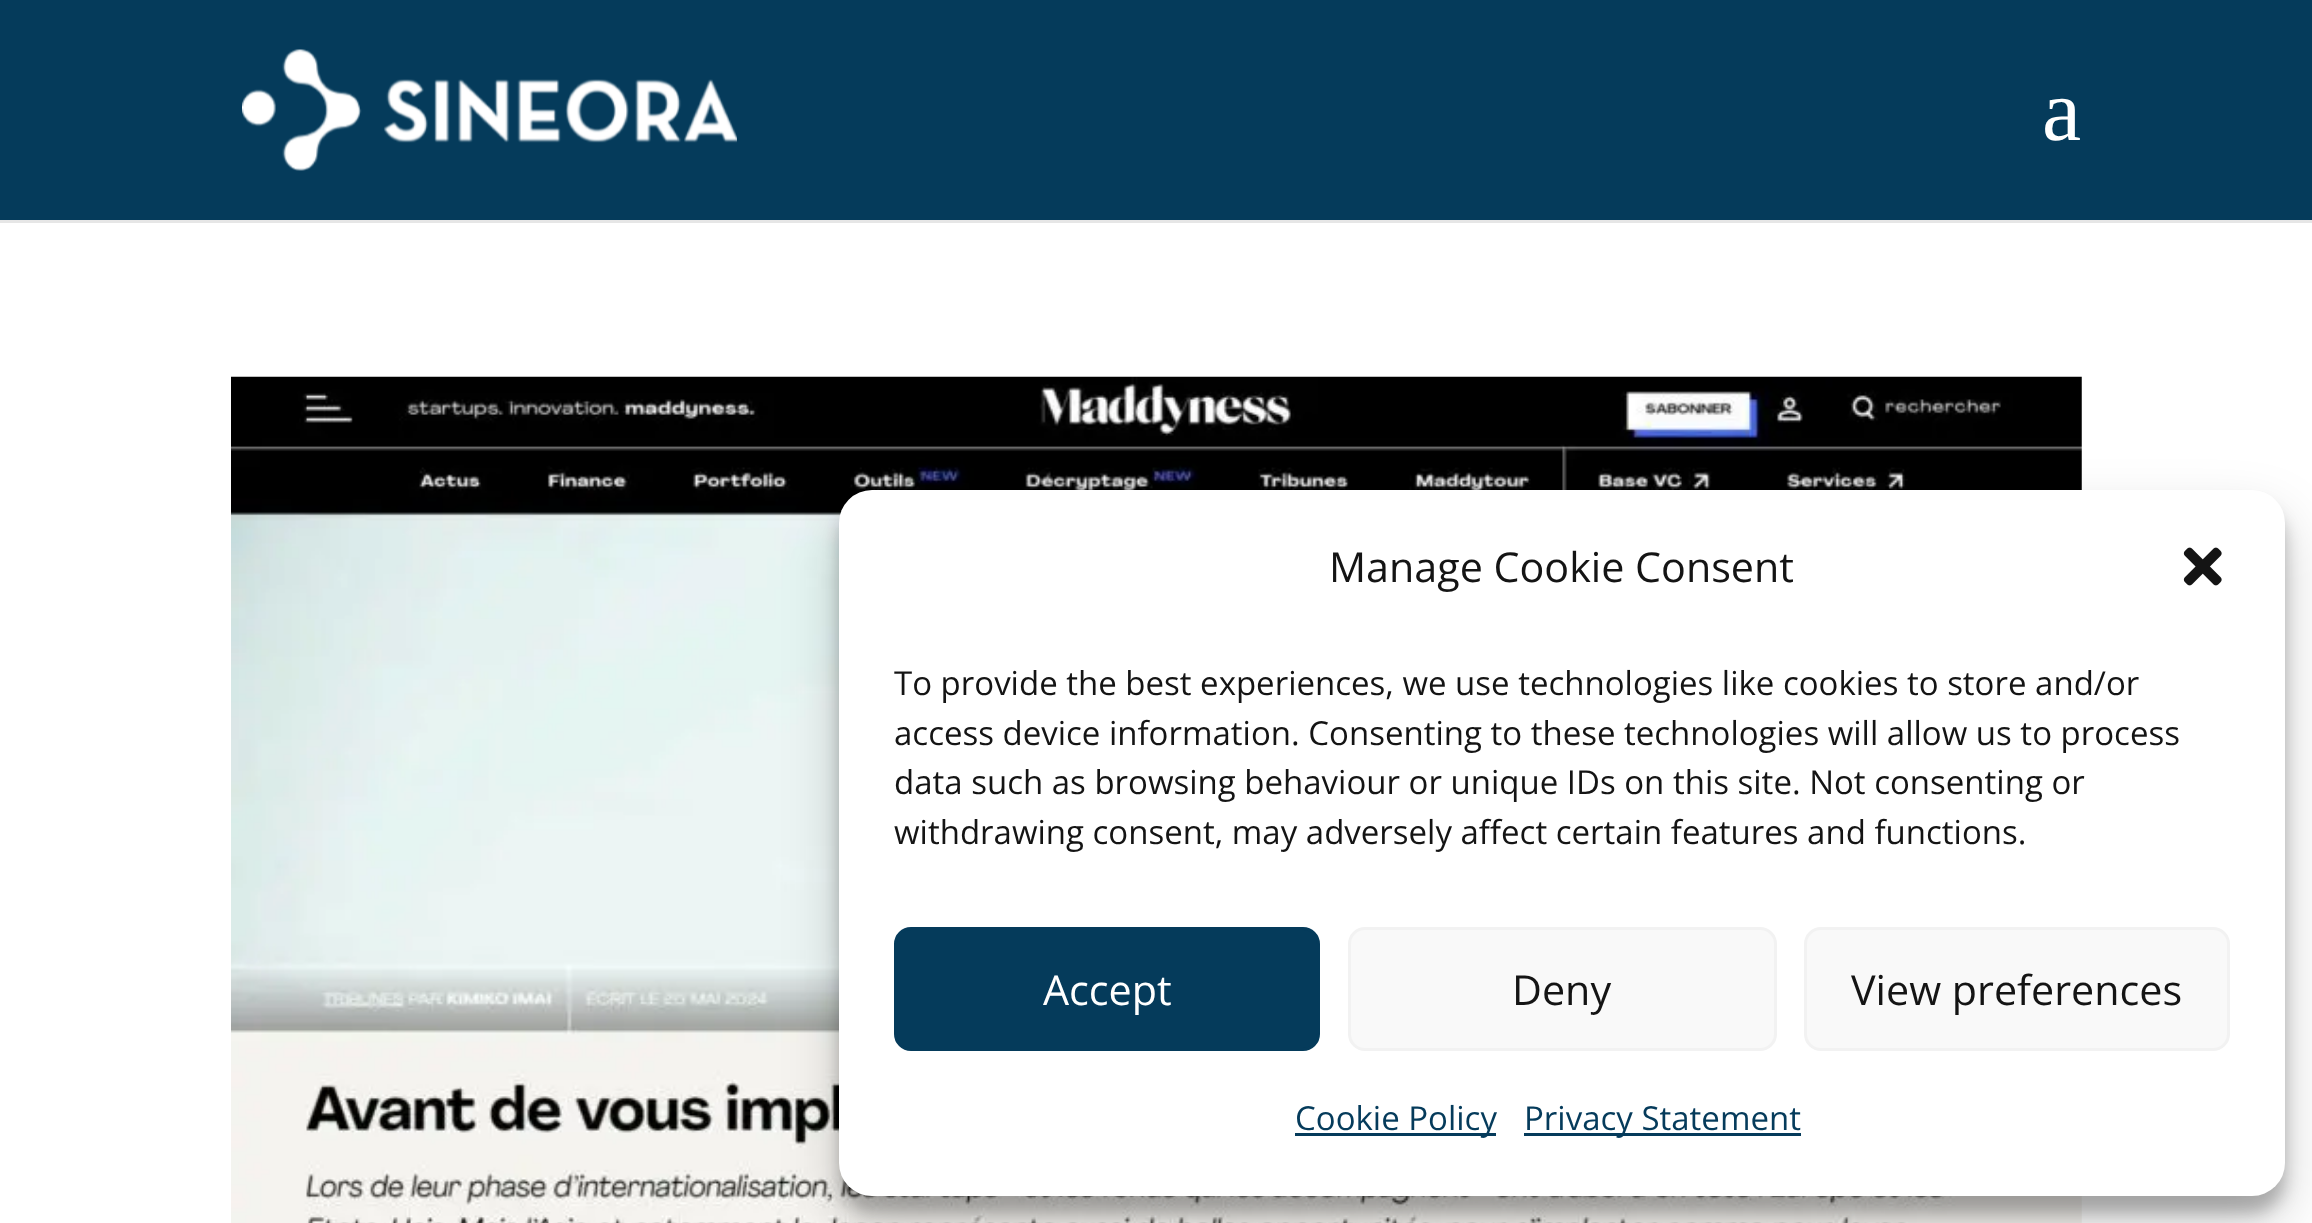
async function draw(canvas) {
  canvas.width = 2312;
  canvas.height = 1223;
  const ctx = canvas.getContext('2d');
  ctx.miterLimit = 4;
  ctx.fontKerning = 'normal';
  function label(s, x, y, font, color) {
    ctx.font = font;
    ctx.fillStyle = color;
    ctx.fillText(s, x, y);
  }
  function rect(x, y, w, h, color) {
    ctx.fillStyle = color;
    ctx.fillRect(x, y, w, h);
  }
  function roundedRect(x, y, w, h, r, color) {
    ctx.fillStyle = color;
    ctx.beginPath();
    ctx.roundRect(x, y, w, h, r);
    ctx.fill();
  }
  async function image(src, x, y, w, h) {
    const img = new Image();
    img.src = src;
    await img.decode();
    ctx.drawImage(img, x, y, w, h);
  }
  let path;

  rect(0, 0, 2312, 1223, '#fff');
  ctx.fillStyle = '#e6e6e6';
  path = new Path2D('M0 220V223H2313V3V220Z');
  ctx.fill(path);
  rect(0, 0, 2312, 220, '#053b5b');
  await image('assets/img1.png', 242, 49, 495, 122);
  label('a', 2042, 140, '88px Liberation Serif', '#fff');
  await image('assets/img2.png', 231, 376, 1851, 847);
  ctx.fillStyle = '#0000003b';
  ctx.filter = 'blur(8px)';
  ctx.beginPath();
  ctx.roundRect(839, 506, 1446, 707, 33);
  ctx.fill();
  ctx.filter = 'none';
  ctx.fillStyle = '#00000030';
  ctx.filter = 'blur(27.5px)';
  ctx.beginPath();
  ctx.roundRect(839, 517, 1446, 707, 33);
  ctx.fill();
  ctx.filter = 'none';
  roundedRect(839, 490, 1446, 706, 33, '#fff');
  label('Manage Cookie Consent', 1329, 582, '41.25px Open Sans', '#141414');
  await image('assets/img3.png', 2183, 547, 39, 39);
  label('To provide the best experiences, we use technologies like cookies to store and/or', 894, 695, '33px Open Sans', '#141414');
  label('access device information. Consenting to these technologies will allow us to process', 894, 745, '33px Open Sans', '#141414');
  label('data such as browsing behaviour or unique IDs on this site. Not consenting or', 894, 794, '33px Open Sans', '#141414');
  label('withdrawing consent, may adversely affect certain features and functions.', 894, 844, '33px Open Sans', '#141414');
  ctx.fillStyle = '#053b5b';
  ctx.beginPath();
  ctx.roundRect(895.5, 928.5, 423, 121, 15.5);
  ctx.fill();
  ctx.strokeStyle = '#053b5b';
  ctx.lineWidth = 3;
  ctx.stroke();
  label('Accept', 1043, 1005, '41.25px Open Sans', '#fff');
  ctx.fillStyle = '#f9f9f9';
  ctx.beginPath();
  ctx.roundRect(1349.5, 928.5, 426, 121, 15.5);
  ctx.fill();
  ctx.strokeStyle = '#f2f2f2';
  ctx.stroke();
  label('Deny', 1512, 1005, '41.25px Open Sans', '#141414');
  ctx.fillStyle = '#f9f9f9';
  ctx.beginPath();
  ctx.roundRect(1805.5, 928.5, 423, 121, 15.5);
  ctx.fill();
  ctx.stroke();
  label('View preferences', 1851, 1005, '41.25px Open Sans', '#141414');
  rect(1295, 1133, 201, 3, '#053b5b');
  label('Cookie Policy', 1295, 1130, '33px Open Sans', '#053b5b');
  rect(1524, 1133, 277, 3, '#053b5b');
  label('Privacy Statement', 1524, 1130, '33px Open Sans', '#053b5b');
}

draw(document.querySelector('canvas'));
